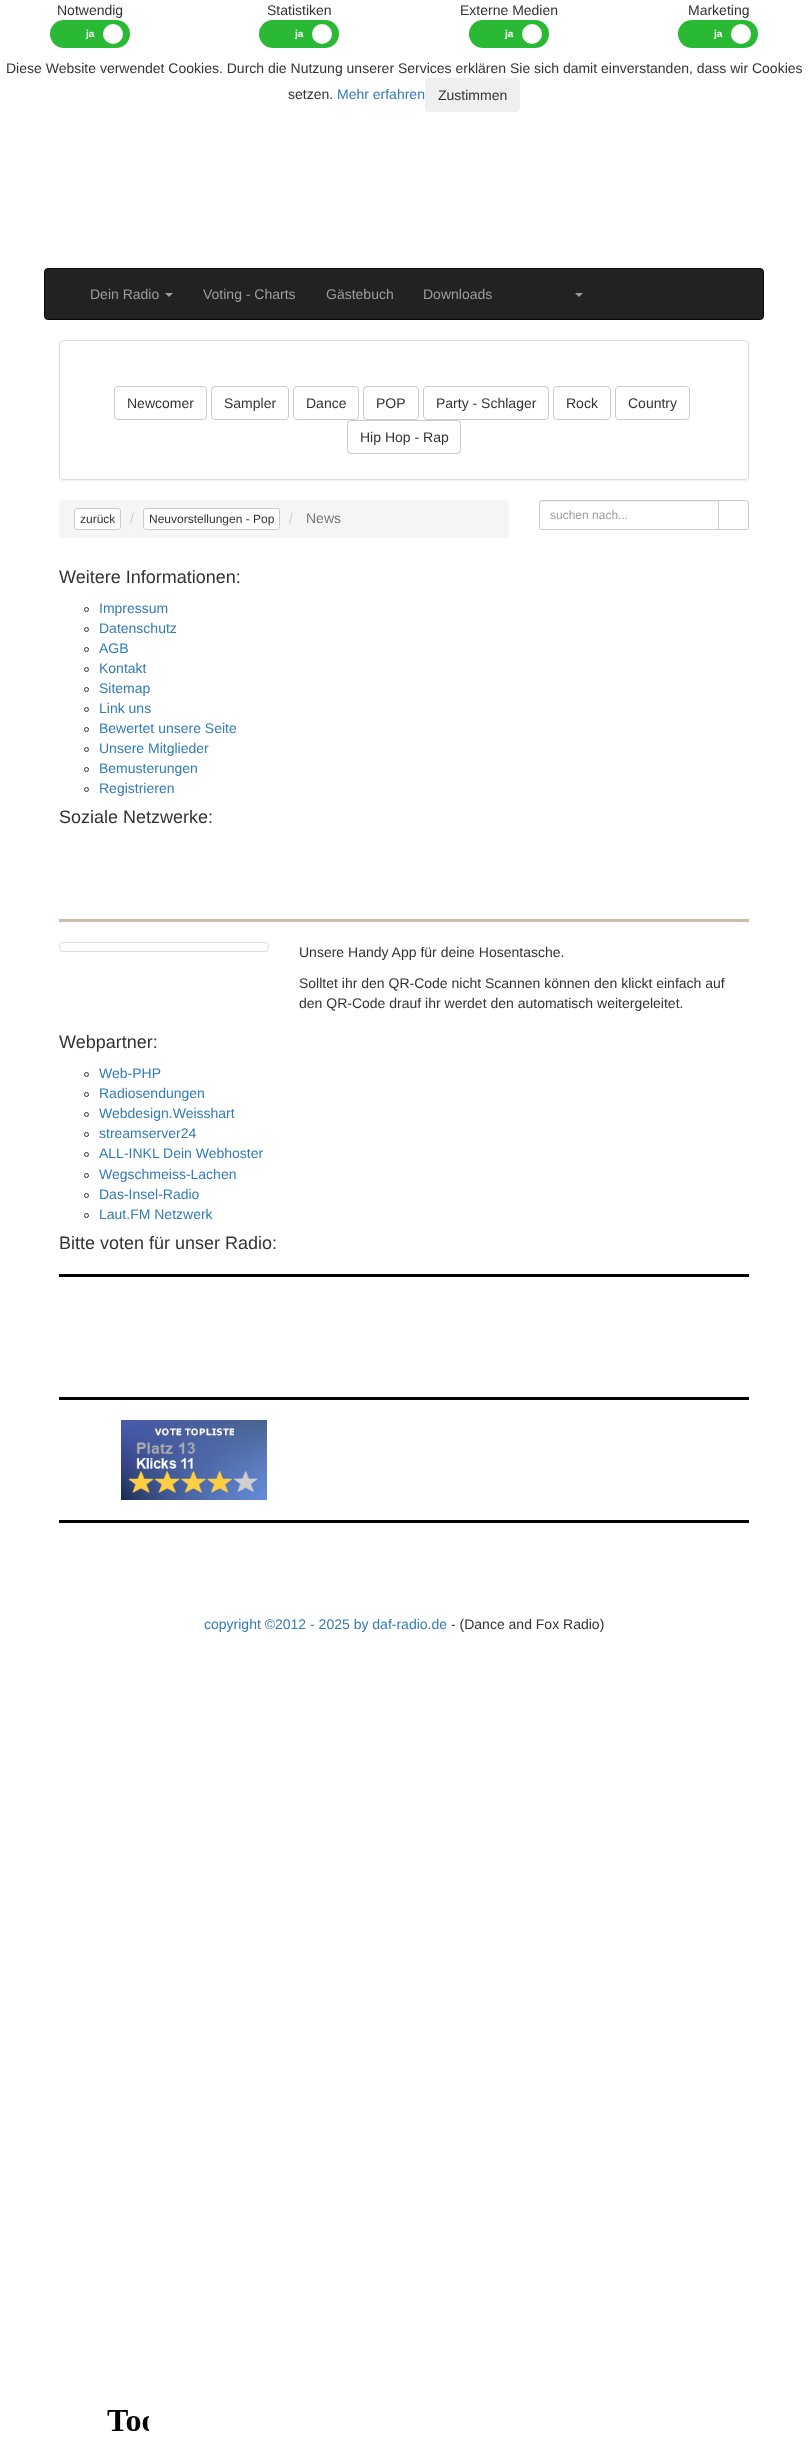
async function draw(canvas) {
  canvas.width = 808;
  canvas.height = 2444;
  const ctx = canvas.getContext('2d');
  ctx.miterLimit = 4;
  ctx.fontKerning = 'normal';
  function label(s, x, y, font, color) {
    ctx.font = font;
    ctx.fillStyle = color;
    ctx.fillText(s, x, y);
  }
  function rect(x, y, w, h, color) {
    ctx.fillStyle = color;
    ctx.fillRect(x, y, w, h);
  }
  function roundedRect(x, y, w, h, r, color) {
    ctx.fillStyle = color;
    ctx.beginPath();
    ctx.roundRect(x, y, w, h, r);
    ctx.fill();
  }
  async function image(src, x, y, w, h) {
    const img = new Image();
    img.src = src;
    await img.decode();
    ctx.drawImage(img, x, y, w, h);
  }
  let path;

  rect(0, 0, 808, 2444, '#fff');
  label('Notwendig', 57, 15, '14px Liberation Sans', '#333');
  roundedRect(50, 20, 80, 28, 14, '#2ab934');
  label('ja', 86, 37, 'bold 10px Liberation Sans', '#fff');
  ctx.beginPath();
  ctx.arc(113, 34, 10, 0, 2 * Math.PI);
  ctx.fill();
  label('Statistiken', 267, 15, '14px Liberation Sans', '#333');
  roundedRect(259, 20, 80, 28, 14, '#2ab934');
  label('ja', 295, 37, 'bold 10px Liberation Sans', '#fff');
  ctx.beginPath();
  ctx.arc(322, 34, 10, 0, 2 * Math.PI);
  ctx.fill();
  label('Externe Medien', 460, 15, '14px Liberation Sans', '#333');
  roundedRect(469, 20, 80, 28, 14, '#2ab934');
  label('ja', 505, 37, 'bold 10px Liberation Sans', '#fff');
  ctx.beginPath();
  ctx.arc(532, 34, 10, 0, 2 * Math.PI);
  ctx.fill();
  label('Marketing', 688, 15, '14px Liberation Sans', '#333');
  roundedRect(678, 20, 80, 28, 14, '#2ab934');
  label('ja', 714, 37, 'bold 10px Liberation Sans', '#fff');
  ctx.beginPath();
  ctx.arc(741, 34, 10, 0, 2 * Math.PI);
  ctx.fill();
  label('Diese Website verwendet Cookies. Durch die Nutzung unserer Services erklären Sie sich damit einverstanden, dass wir Cookies', 6, 73, '14px Liberation Sans', '#333');
  label('setzen.', 288, 99, '14px Liberation Sans', '#333');
  label('Mehr erfahren', 337, 99, '14px Liberation Sans', '#337ab7');
  roundedRect(425, 78, 95, 34, 4, '#efefef');
  label('Zustimmen', 438, 100, '14px Liberation Sans', '#333');
  ctx.fillStyle = '#222';
  ctx.beginPath();
  ctx.roundRect(44.5, 268.5, 719, 51, 3.5);
  ctx.fill();
  ctx.strokeStyle = '#080808';
  ctx.stroke();
  label('Dein Radio', 90, 299, '14px Liberation Sans', '#9d9d9d');
  path = new Path2D('M165 293H173L169 297Z');
  ctx.fill(path);
  label('Voting - Charts', 203, 299, '14px Liberation Sans', '#9d9d9d');
  label('Gästebuch', 326, 299, '14px Liberation Sans', '#9d9d9d');
  label('Downloads', 423, 299, '14px Liberation Sans', '#9d9d9d');
  path = new Path2D('M575 293H583L579 297Z');
  ctx.fill(path);
  ctx.fillStyle = '#0000000d';
  ctx.filter = 'blur(0.5px)';
  ctx.beginPath();
  ctx.roundRect(59, 341, 690, 140, 4);
  ctx.fill();
  ctx.filter = 'none';
  ctx.fillStyle = '#fff';
  ctx.beginPath();
  ctx.roundRect(59.5, 340.5, 689, 139, 3.5);
  ctx.fill();
  ctx.strokeStyle = '#ddd';
  ctx.stroke();
  ctx.beginPath();
  ctx.roundRect(114.5, 386.5, 92, 33, 3.5);
  ctx.strokeStyle = '#ccc';
  ctx.stroke();
  label('Newcomer', 127, 408, '14px Liberation Sans', '#333');
  ctx.beginPath();
  ctx.roundRect(211.5, 386.5, 77, 33, 3.5);
  ctx.stroke();
  label('Sampler', 224, 408, '14px Liberation Sans', '#333');
  ctx.beginPath();
  ctx.roundRect(293.5, 386.5, 65, 33, 3.5);
  ctx.stroke();
  label('Dance', 306, 408, '14px Liberation Sans', '#333');
  ctx.beginPath();
  ctx.roundRect(363.5, 386.5, 55, 33, 3.5);
  ctx.stroke();
  label('POP', 376, 408, '14px Liberation Sans', '#333');
  ctx.beginPath();
  ctx.roundRect(423.5, 386.5, 125, 33, 3.5);
  ctx.stroke();
  label('Party - Schlager', 436, 408, '14px Liberation Sans', '#333');
  ctx.beginPath();
  ctx.roundRect(553.5, 386.5, 57, 33, 3.5);
  ctx.stroke();
  label('Rock', 566, 408, '14px Liberation Sans', '#333');
  ctx.beginPath();
  ctx.roundRect(615.5, 386.5, 74, 33, 3.5);
  ctx.stroke();
  label('Country', 628, 408, '14px Liberation Sans', '#333');
  ctx.beginPath();
  ctx.roundRect(347.5, 420.5, 113, 33, 3.5);
  ctx.stroke();
  label('Hip Hop - Rap', 360, 442, '14px Liberation Sans', '#333');
  roundedRect(59, 500, 450, 38, 4, '#f5f5f5');
  ctx.fillStyle = '#fff';
  ctx.beginPath();
  ctx.roundRect(74.5, 508.5, 46, 21, 2.5);
  ctx.fill();
  ctx.stroke();
  label('zurück', 80, 523, '12px Liberation Sans', '#333');
  label('/', 130, 523, '14px Liberation Sans', '#ccc');
  ctx.fillStyle = '#fff';
  ctx.beginPath();
  ctx.roundRect(143.5, 508.5, 136, 21, 2.5);
  ctx.fill();
  ctx.stroke();
  label('Neuvorstellungen - Pop', 149, 523, '12px Liberation Sans', '#333');
  label('/', 289, 523, '14px Liberation Sans', '#ccc');
  label('News', 306, 523, '14px Liberation Sans', '#777');
  ctx.fillStyle = '#ececec';
  path = new Path2D('M542 502H718V501H541C540 502 540 503 540 504C540 503 541 502 542 502Z');
  ctx.fill(path);
  ctx.beginPath();
  ctx.roundRect(539.5, 500.5, 179, 29, [2.5, 0, 0, 2.5]);
  ctx.stroke();
  label('suchen nach...', 550, 519, '12px Liberation Sans', '#9d9d9d');
  ctx.fillStyle = '#fff';
  ctx.beginPath();
  ctx.roundRect(718.5, 500.5, 30, 29, [0, 2.5, 2.5, 0]);
  ctx.fill();
  ctx.stroke();
  label('Weitere Informationen:', 59, 583, '18px Liberation Sans', '#333');
  ctx.beginPath();
  ctx.arc(86.5, 609.5, 2, 0, 2 * Math.PI);
  ctx.strokeStyle = '#333';
  ctx.stroke();
  label('Impressum', 99, 613, '14px Liberation Sans', '#337ab7');
  ctx.beginPath();
  ctx.arc(86.5, 629.5, 2, 0, 2 * Math.PI);
  ctx.stroke();
  label('Datenschutz', 99, 633, '14px Liberation Sans', '#337ab7');
  ctx.beginPath();
  ctx.arc(86.5, 649.5, 2, 0, 2 * Math.PI);
  ctx.stroke();
  label('AGB', 99, 653, '14px Liberation Sans', '#337ab7');
  ctx.beginPath();
  ctx.arc(86.5, 669.5, 2, 0, 2 * Math.PI);
  ctx.stroke();
  label('Kontakt', 99, 673, '14px Liberation Sans', '#337ab7');
  ctx.beginPath();
  ctx.arc(86.5, 689.5, 2, 0, 2 * Math.PI);
  ctx.stroke();
  label('Sitemap', 99, 693, '14px Liberation Sans', '#337ab7');
  ctx.beginPath();
  ctx.arc(86.5, 709.5, 2, 0, 2 * Math.PI);
  ctx.stroke();
  label('Link uns', 99, 713, '14px Liberation Sans', '#337ab7');
  ctx.beginPath();
  ctx.arc(86.5, 729.5, 2, 0, 2 * Math.PI);
  ctx.stroke();
  label('Bewertet unsere Seite', 99, 733, '14px Liberation Sans', '#337ab7');
  ctx.beginPath();
  ctx.arc(86.5, 749.5, 2, 0, 2 * Math.PI);
  ctx.stroke();
  label('Unsere Mitglieder', 99, 753, '14px Liberation Sans', '#337ab7');
  ctx.beginPath();
  ctx.arc(86.5, 769.5, 2, 0, 2 * Math.PI);
  ctx.stroke();
  label('Bemusterungen', 99, 773, '14px Liberation Sans', '#337ab7');
  ctx.beginPath();
  ctx.arc(86.5, 789.5, 2, 0, 2 * Math.PI);
  ctx.stroke();
  label('Registrieren', 99, 793, '14px Liberation Sans', '#337ab7');
  label('Soziale Netzwerke:', 59, 823, '18px Liberation Sans', '#333');
  rect(59, 919, 690, 3, '#ccbea4');
  ctx.beginPath();
  ctx.roundRect(59.5, 942.5, 209, 9, 3.5);
  ctx.strokeStyle = '#ddd';
  ctx.stroke();
  label('Unsere Handy App für deine Hosentasche.', 299, 957, '14px Liberation Sans', '#333');
  label('Solltet ihr den QR-Code nicht Scannen können den klickt einfach auf', 299, 988, '14px Liberation Sans', '#333');
  label('den QR-Code drauf ihr werdet den automatisch weitergeleitet.', 299, 1008, '14px Liberation Sans', '#333');
  label('Webpartner:', 59, 1048, '18px Liberation Sans', '#333');
  ctx.beginPath();
  ctx.arc(86.5, 1074.5, 2, 0, 2 * Math.PI);
  ctx.strokeStyle = '#333';
  ctx.stroke();
  label('Web-PHP', 99, 1078, '14px Liberation Sans', '#337ab7');
  ctx.beginPath();
  ctx.arc(86.5, 1094.5, 2, 0, 2 * Math.PI);
  ctx.stroke();
  label('Radiosendungen', 99, 1098, '14px Liberation Sans', '#337ab7');
  ctx.beginPath();
  ctx.arc(86.5, 1114.5, 2, 0, 2 * Math.PI);
  ctx.stroke();
  label('Webdesign.Weisshart', 99, 1118, '14px Liberation Sans', '#337ab7');
  ctx.beginPath();
  ctx.arc(86.5, 1134.5, 2, 0, 2 * Math.PI);
  ctx.stroke();
  label('streamserver24', 99, 1138, '14px Liberation Sans', '#337ab7');
  ctx.beginPath();
  ctx.arc(86.5, 1154.5, 2, 0, 2 * Math.PI);
  ctx.stroke();
  label('ALL-INKL Dein Webhoster', 99, 1158, '14px Liberation Sans', '#337ab7');
  ctx.beginPath();
  ctx.arc(86.5, 1175.5, 2, 0, 2 * Math.PI);
  ctx.stroke();
  label('Wegschmeiss-Lachen', 99, 1179, '14px Liberation Sans', '#337ab7');
  ctx.beginPath();
  ctx.arc(86.5, 1195.5, 2, 0, 2 * Math.PI);
  ctx.stroke();
  label('Das-Insel-Radio', 99, 1199, '14px Liberation Sans', '#337ab7');
  ctx.beginPath();
  ctx.arc(86.5, 1215.5, 2, 0, 2 * Math.PI);
  ctx.stroke();
  label('Laut.FM Netzwerk', 99, 1219, '14px Liberation Sans', '#337ab7');
  label('Bitte voten für unser Radio:', 59, 1249, '18px Liberation Sans', '#333');
  rect(59, 1274, 690, 3, '#000');
  rect(59, 1397, 690, 3, '#000');
  await image('assets/img1.png', 121, 1420, 146, 80);
  rect(59, 1520, 690, 3, '#000');
  label('copyright ©2012 - 2025 by daf-radio.de', 204, 1629, '14px Liberation Sans', '#337ab7');
  label('- (Dance and Fox Radio)', 451, 1629, '14px Liberation Sans', '#333');
  await image('assets/img2.png', 107, 2410, 42, 21);
}

draw(document.querySelector('canvas'));
